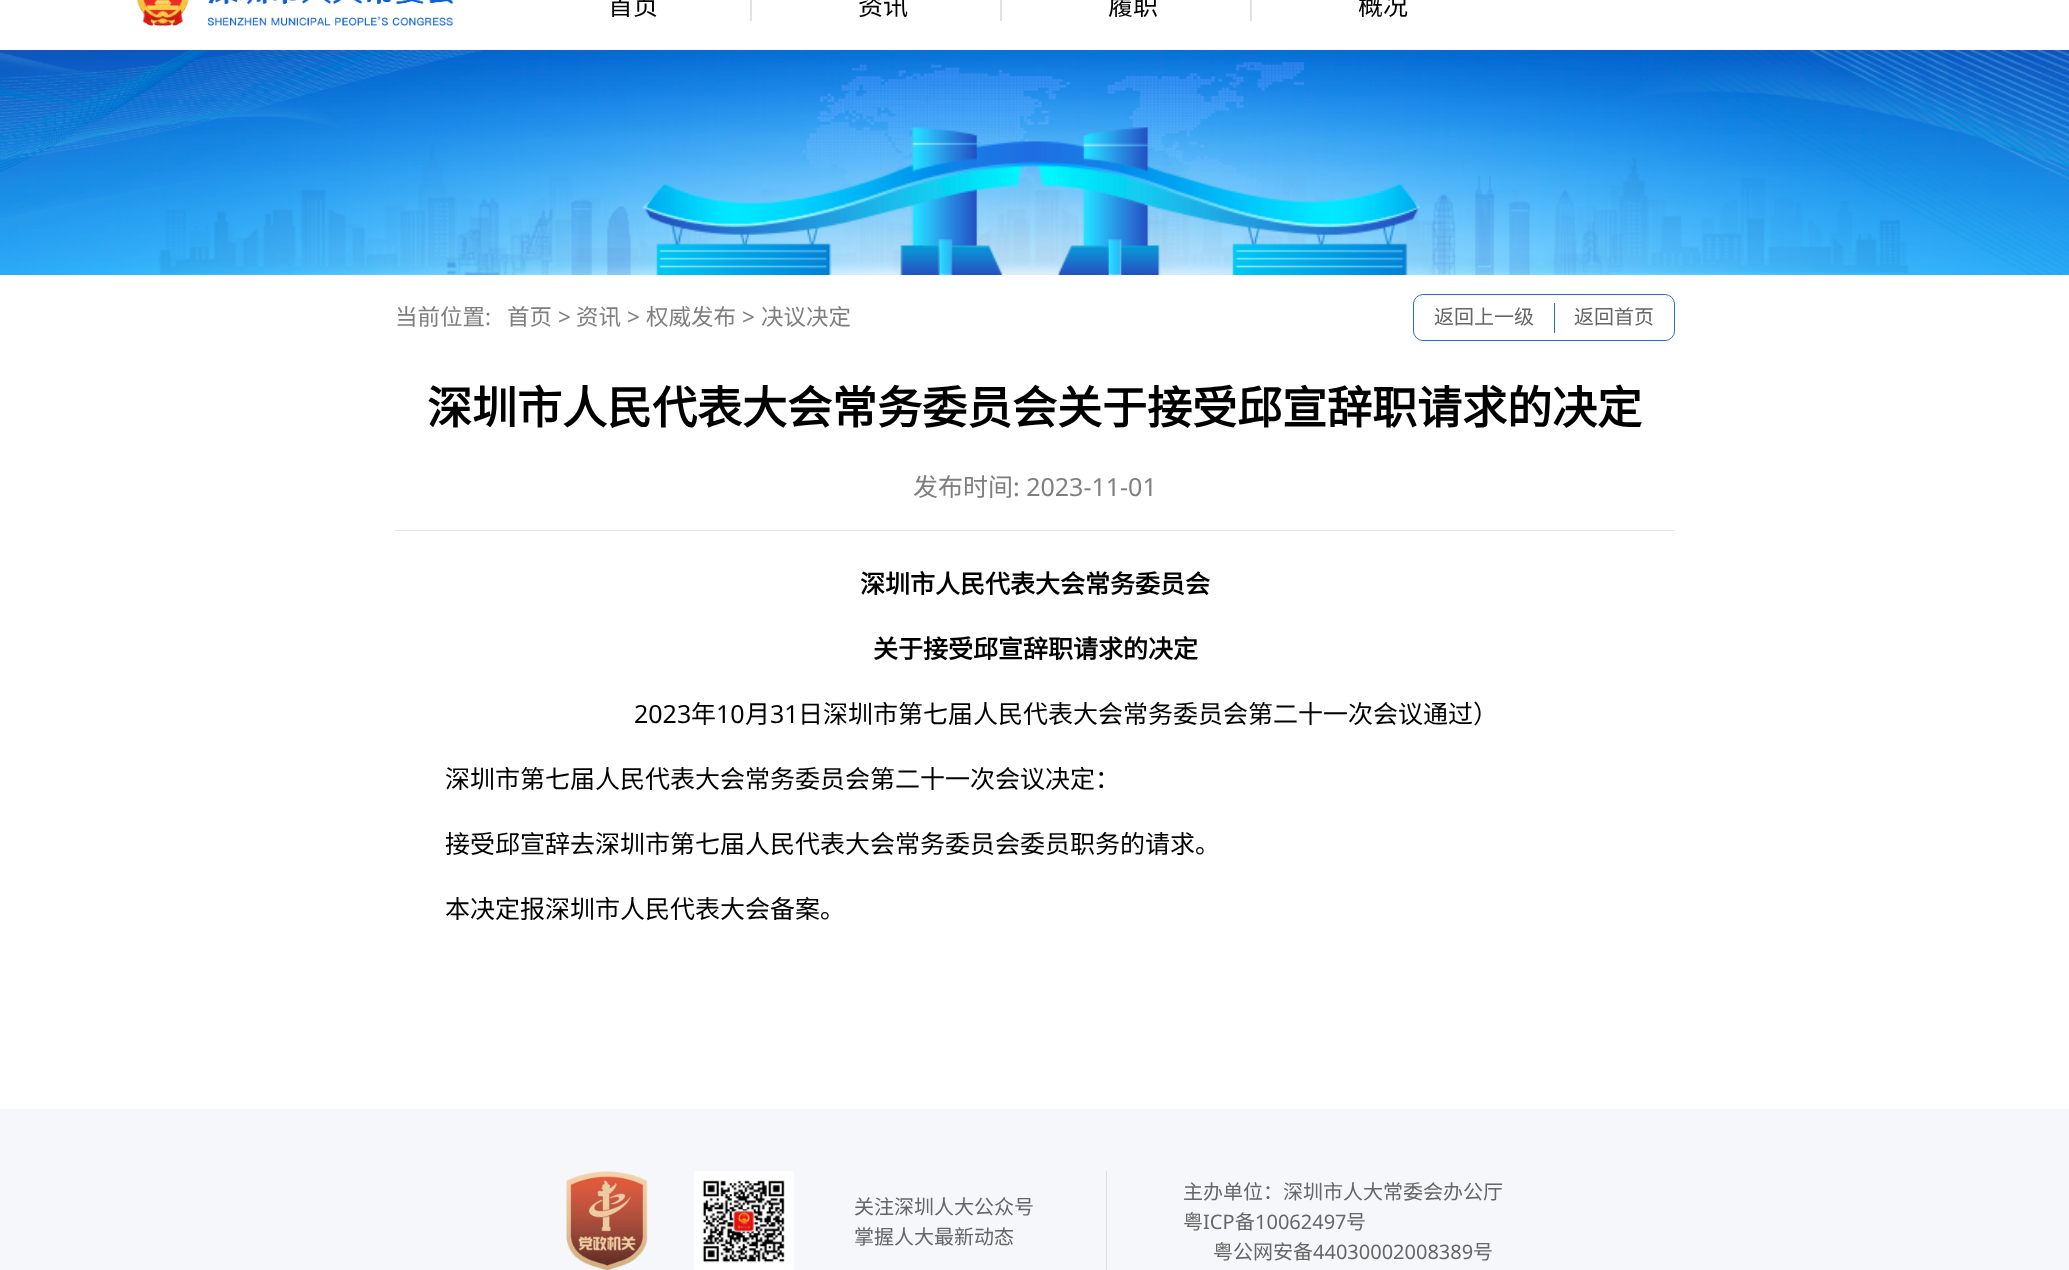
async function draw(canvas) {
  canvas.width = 2069;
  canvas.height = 1270;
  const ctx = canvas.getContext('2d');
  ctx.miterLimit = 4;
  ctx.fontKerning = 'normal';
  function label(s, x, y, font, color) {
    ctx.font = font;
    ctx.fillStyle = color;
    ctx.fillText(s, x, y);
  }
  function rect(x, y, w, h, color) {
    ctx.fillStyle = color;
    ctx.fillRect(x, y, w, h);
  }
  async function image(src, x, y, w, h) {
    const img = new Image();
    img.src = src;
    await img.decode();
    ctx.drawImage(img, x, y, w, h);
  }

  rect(0, 0, 2069, 1270, '#fff');
  await image('assets/img1.png', 136, 0, 318, 26);
  label('首页', 608, 15, '25px Noto Sans CJK SC', '#000');
  label('|', 744, 15, '25px Noto Sans', '#dfdfdf');
  label('资讯', 858, 15, '25px Noto Sans CJK SC', '#000');
  label('|', 994, 15, '25px Noto Sans', '#dfdfdf');
  label('履职', 1108, 15, '25px Noto Sans CJK SC', '#000');
  label('|', 1244, 15, '25px Noto Sans', '#dfdfdf');
  label('概况', 1358, 15, '25px Noto Sans CJK SC', '#000');
  await image('assets/img2.png', 0, 50, 2069, 225);
  await image('assets/img3.png', 447, 127, 1175, 148);
  label('当前位置', 395, 325, '22.5px Noto Sans CJK SC', '#7f7f7f');
  label(':', 485, 325, '22.5px Noto Sans', '#7f7f7f');
  label('首页', 507, 325, '22.5px Noto Sans CJK SC', '#7f7f7f');
  label('>', 558, 325, '22.5px Noto Sans', '#7f7f7f');
  label('资讯', 576, 325, '22.5px Noto Sans CJK SC', '#7f7f7f');
  label('>', 627, 325, '22.5px Noto Sans', '#7f7f7f');
  label('权威发布', 646, 325, '22.5px Noto Sans CJK SC', '#7f7f7f');
  label('>', 742, 325, '22.5px Noto Sans', '#7f7f7f');
  label('决议决定', 761, 325, '22.5px Noto Sans CJK SC', '#7f7f7f');
  ctx.beginPath();
  ctx.roundRect(1413.5, 294.5, 261, 46, 9.5);
  ctx.strokeStyle = '#2a6dc7';
  ctx.stroke();
  rect(1554, 303, 1, 30, '#2a6dc7');
  label('返回上一级', 1434, 324, '20px Noto Sans CJK SC', '#666');
  label('返回首页', 1574, 324, '20px Noto Sans CJK SC', '#666');
  rect(395, 530, 1280, 1, '#e5e7eb');
  label('深圳市人民代表大会常务委员会关于接受邱宣辞职请求的决定', 427, 424, 'bold 45px Noto Sans CJK SC', '#000');
  label('发布时间', 913, 496, '25px Noto Sans CJK SC', '#7f7f7f');
  label(': 2023-11-01', 1013, 496, '25px Noto Sans', '#7f7f7f');
  label('深圳市人民代表大会常务委员会', 860, 593, 'bold 25px Noto Sans CJK SC', '#000');
  label('关于接受邱宣辞职请求的决定', 873, 658, 'bold 25px Noto Sans CJK SC', '#000');
  label('2023', 634, 723, '25px Noto Sans', '#000');
  label('年', 691, 723, '25px Noto Sans CJK SC', '#000');
  label('10', 716, 723, '25px Noto Sans', '#000');
  label('月', 745, 723, '25px Noto Sans CJK SC', '#000');
  label('31', 770, 723, '25px Noto Sans', '#000');
  label('日深圳市第七届人民代表大会常务委员会第二十一次会议通过）', 798, 723, '25px Noto Sans CJK SC', '#000');
  label('深圳市第七届人民代表大会常务委员会第二十一次会议决定：', 445, 788, '25px Noto Sans CJK SC', '#000');
  label('接受邱宣辞去深圳市第七届人民代表大会常务委员会委员职务的请求。', 445, 853, '25px Noto Sans CJK SC', '#000');
  label('本决定报深圳市人民代表大会备案。', 445, 918, '25px Noto Sans CJK SC', '#000');
  rect(0, 1109, 2069, 161, '#f6f7fa');
  await image('assets/img4.png', 566, 1171, 82, 99);
  rect(1106, 1171, 1, 99, '#ddd');
  await image('assets/img5.png', 694, 1171, 100, 99);
  label('关注深圳人大公众号', 854, 1214, '20px Noto Sans CJK SC', '#666');
  label('掌握人大最新动态', 854, 1244, '20px Noto Sans CJK SC', '#666');
  label('主办单位：深圳市人大常委会办公厅', 1183, 1199, '20px Noto Sans CJK SC', '#666');
  label('粤', 1183, 1229, '20px Noto Sans CJK SC', '#666');
  label('ICP', 1203, 1229, '20px Noto Sans', '#666');
  label('备', 1235, 1229, '20px Noto Sans CJK SC', '#666');
  label('10062497', 1255, 1229, '20px Noto Sans', '#666');
  label('号', 1346, 1229, '20px Noto Sans CJK SC', '#666');
  label('粤公网安备', 1213, 1259, '20px Noto Sans CJK SC', '#666');
  label('44030002008389', 1313, 1259, '20px Noto Sans', '#666');
  label('号', 1473, 1259, '20px Noto Sans CJK SC', '#666');
}

draw(document.querySelector('canvas'));
